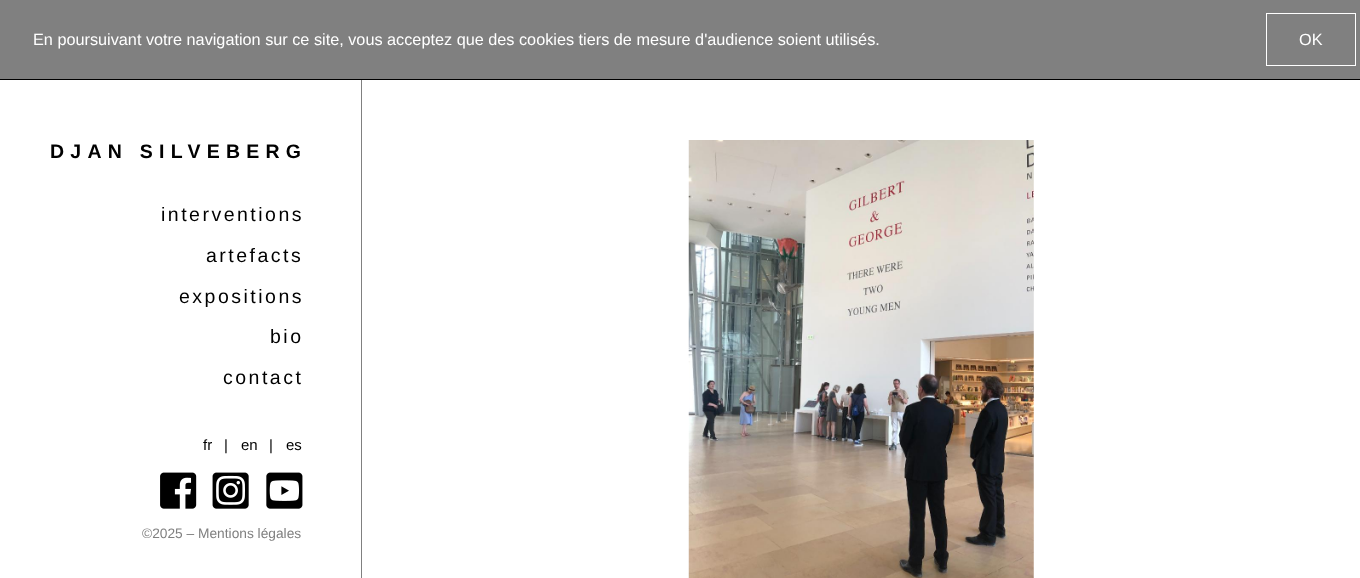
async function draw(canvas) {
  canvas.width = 1360;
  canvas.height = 578;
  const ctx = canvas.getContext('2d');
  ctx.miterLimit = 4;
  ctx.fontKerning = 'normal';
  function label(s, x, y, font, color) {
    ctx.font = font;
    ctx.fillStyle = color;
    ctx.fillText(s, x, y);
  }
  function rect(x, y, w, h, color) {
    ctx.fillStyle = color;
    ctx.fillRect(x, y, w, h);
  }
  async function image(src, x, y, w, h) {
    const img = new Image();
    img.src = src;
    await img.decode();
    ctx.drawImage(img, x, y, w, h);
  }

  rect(0, 0, 1360, 578, '#fff');
  rect(0, 0, 1360, 79, '#808080');
  rect(0, 79, 1360, 1, '#000');
  label('En poursuivant votre navigation sur ce site, vous acceptez que des cookies tiers de mesure d\'audience soient utilisés.', 33, 45, '16.25px Liberation Sans', '#fff');
  ctx.strokeStyle = '#fff';
  ctx.strokeRect(1266.5, 13.5, 89, 52);
  label('OK', 1299, 45, '16.25px Liberation Sans', '#fff');
  rect(361, 80, 1, 498, '#808080');
  ctx.letterSpacing = '6.25px';
  label('DJAN SILVEBERG', 50, 158, 'bold 19.5px Liberation Sans', '#000');
  ctx.letterSpacing = '2.5px';
  label('interventions', 161, 221, '19.5px Liberation Sans', '#000');
  label('artefacts', 206, 262, '19.5px Liberation Sans', '#000');
  label('expositions', 179, 303, '19.5px Liberation Sans', '#000');
  label('bio', 270, 343, '19.5px Liberation Sans', '#000');
  label('contact', 223, 384, '19.5px Liberation Sans', '#000');
  ctx.letterSpacing = '0px';
  label('fr', 203, 450, '15px Liberation Sans', '#000');
  label('|', 224, 450, '15px Liberation Sans', '#000');
  label('en', 241, 450, '15px Liberation Sans', '#000');
  label('|', 269, 450, '15px Liberation Sans', '#000');
  label('es', 286, 450, '15px Liberation Sans', '#000');
  await image('assets/img1.png', 160, 472, 37, 37);
  await image('assets/img2.png', 212, 472, 37, 37);
  await image('assets/img3.png', 266, 472, 37, 37);
  label('©2025 – Mentions légales', 142, 538, '13.75px Liberation Sans', '#808080');
  await image('assets/img4.png', 688, 140, 346, 438);
}

draw(document.querySelector('canvas'));
